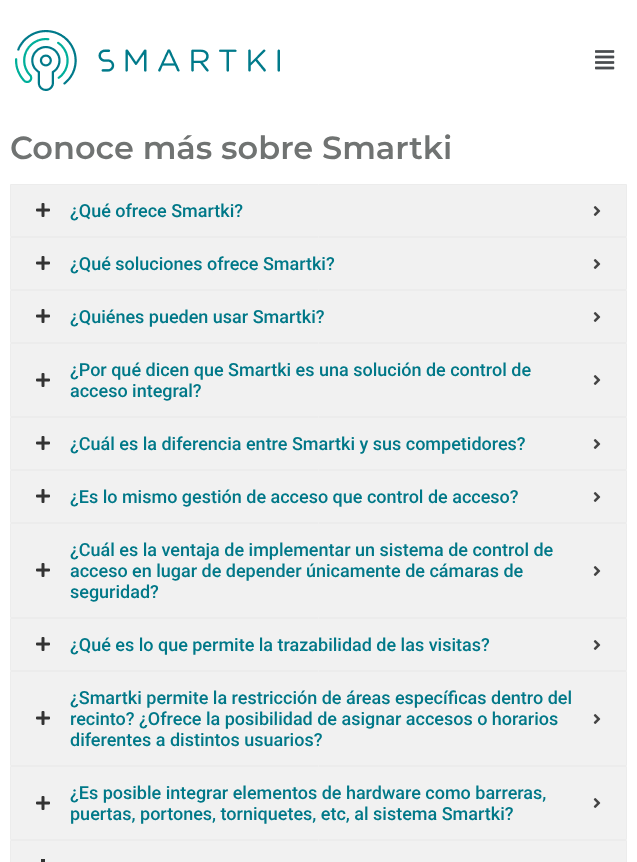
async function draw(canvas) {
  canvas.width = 637;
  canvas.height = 862;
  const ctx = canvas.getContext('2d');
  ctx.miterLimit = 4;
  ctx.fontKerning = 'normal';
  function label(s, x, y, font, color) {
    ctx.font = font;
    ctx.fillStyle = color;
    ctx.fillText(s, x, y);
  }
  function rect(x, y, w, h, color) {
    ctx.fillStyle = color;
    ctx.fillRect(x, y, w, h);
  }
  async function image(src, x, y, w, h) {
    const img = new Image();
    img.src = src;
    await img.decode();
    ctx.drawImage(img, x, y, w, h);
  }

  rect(0, 0, 637, 862, '#fff');
  await image('assets/img1.png', 15, 30, 265, 61);
  await image('assets/img2.png', 595, 50, 20, 20);
  label('Conoce más sobre Smartki', 10, 159, '600 32px Montserrat', '#707372');
  ctx.fillStyle = '#f1f1f1';
  ctx.beginPath();
  ctx.rect(10.5, 184.5, 616, 52);
  ctx.fill();
  ctx.strokeStyle = '#ececec';
  ctx.stroke();
  await image('assets/img3.png', 36, 203, 14, 14);
  label('¿Qué ofrece Smartki?', 70, 217, '500 18px Roboto', '#007888');
  await image('assets/img4.png', 593, 206, 8, 10);
  ctx.fillStyle = '#f1f1f1';
  ctx.beginPath();
  ctx.rect(10.5, 237.5, 616, 52);
  ctx.fill();
  ctx.stroke();
  await image('assets/img3.png', 36, 256, 14, 14);
  label('¿Qué soluciones ofrece Smartki?', 70, 270, '500 18px Roboto', '#007888');
  await image('assets/img4.png', 593, 259, 8, 10);
  ctx.fillStyle = '#f1f1f1';
  ctx.beginPath();
  ctx.rect(10.5, 290.5, 616, 52);
  ctx.fill();
  ctx.stroke();
  await image('assets/img3.png', 36, 309, 14, 14);
  label('¿Quiénes pueden usar Smartki?', 70, 323, '500 18px Roboto', '#007888');
  await image('assets/img4.png', 593, 312, 8, 10);
  ctx.fillStyle = '#f1f1f1';
  ctx.beginPath();
  ctx.rect(10.5, 343.5, 616, 73);
  ctx.fill();
  ctx.stroke();
  await image('assets/img3.png', 36, 373, 14, 14);
  label('¿Por qué dicen que Smartki es una solución de control de', 70, 376, '500 18px Roboto', '#007888');
  label('acceso integral?', 70, 397, '500 18px Roboto', '#007888');
  await image('assets/img4.png', 593, 375, 8, 10);
  ctx.fillStyle = '#f1f1f1';
  ctx.beginPath();
  ctx.rect(10.5, 417.5, 616, 52);
  ctx.fill();
  ctx.stroke();
  await image('assets/img3.png', 36, 436, 14, 14);
  label('¿Cuál es la diferencia entre Smartki y sus competidores?', 70, 450, '500 18px Roboto', '#007888');
  await image('assets/img4.png', 593, 439, 8, 10);
  ctx.fillStyle = '#f1f1f1';
  ctx.beginPath();
  ctx.rect(10.5, 470.5, 616, 52);
  ctx.fill();
  ctx.stroke();
  await image('assets/img3.png', 36, 489, 14, 14);
  label('¿Es lo mismo gestión de acceso que control de acceso?', 70, 503, '500 18px Roboto', '#007888');
  await image('assets/img4.png', 593, 492, 8, 10);
  ctx.fillStyle = '#f1f1f1';
  ctx.beginPath();
  ctx.rect(10.5, 523.5, 616, 94);
  ctx.fill();
  ctx.stroke();
  await image('assets/img3.png', 36, 563, 14, 14);
  label('¿Cuál es la ventaja de implementar un sistema de control de', 70, 556, '500 18px Roboto', '#007888');
  label('acceso en lugar de depender únicamente de cámaras de', 70, 577, '500 18px Roboto', '#007888');
  label('seguridad?', 70, 598, '500 18px Roboto', '#007888');
  await image('assets/img4.png', 593, 566, 8, 10);
  ctx.fillStyle = '#f1f1f1';
  ctx.beginPath();
  ctx.rect(10.5, 618.5, 616, 52);
  ctx.fill();
  ctx.stroke();
  await image('assets/img3.png', 36, 637, 14, 14);
  label('¿Qué es lo que permite la trazabilidad de las visitas?', 70, 651, '500 18px Roboto', '#007888');
  await image('assets/img4.png', 593, 640, 8, 10);
  ctx.fillStyle = '#f1f1f1';
  ctx.beginPath();
  ctx.rect(10.5, 671.5, 616, 94);
  ctx.fill();
  ctx.stroke();
  await image('assets/img3.png', 36, 711, 14, 14);
  label('¿Smartki permite la restricción de áreas específicas dentro del', 70, 704, '500 18px Roboto', '#007888');
  label('recinto? ¿Ofrece la posibilidad de asignar accesos o horarios', 70, 725, '500 18px Roboto', '#007888');
  label('diferentes a distintos usuarios?', 70, 746, '500 18px Roboto', '#007888');
  await image('assets/img4.png', 593, 714, 8, 10);
  ctx.fillStyle = '#f1f1f1';
  ctx.beginPath();
  ctx.rect(10.5, 766.5, 616, 73);
  ctx.fill();
  ctx.stroke();
  await image('assets/img3.png', 36, 796, 14, 14);
  label('¿Es posible integrar elementos de hardware como barreras,', 70, 799, '500 18px Roboto', '#007888');
  label('puertas, portones, torniquetes, etc, al sistema Smartki?', 70, 820, '500 18px Roboto', '#007888');
  await image('assets/img4.png', 593, 798, 8, 10);
  ctx.fillStyle = '#f1f1f1';
  ctx.beginPath();
  ctx.rect(10.5, 840.5, 616, 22);
  ctx.fill();
  ctx.stroke();
  rect(41, 859, 4, 3, '#333');
}

draw(document.querySelector('canvas'));
